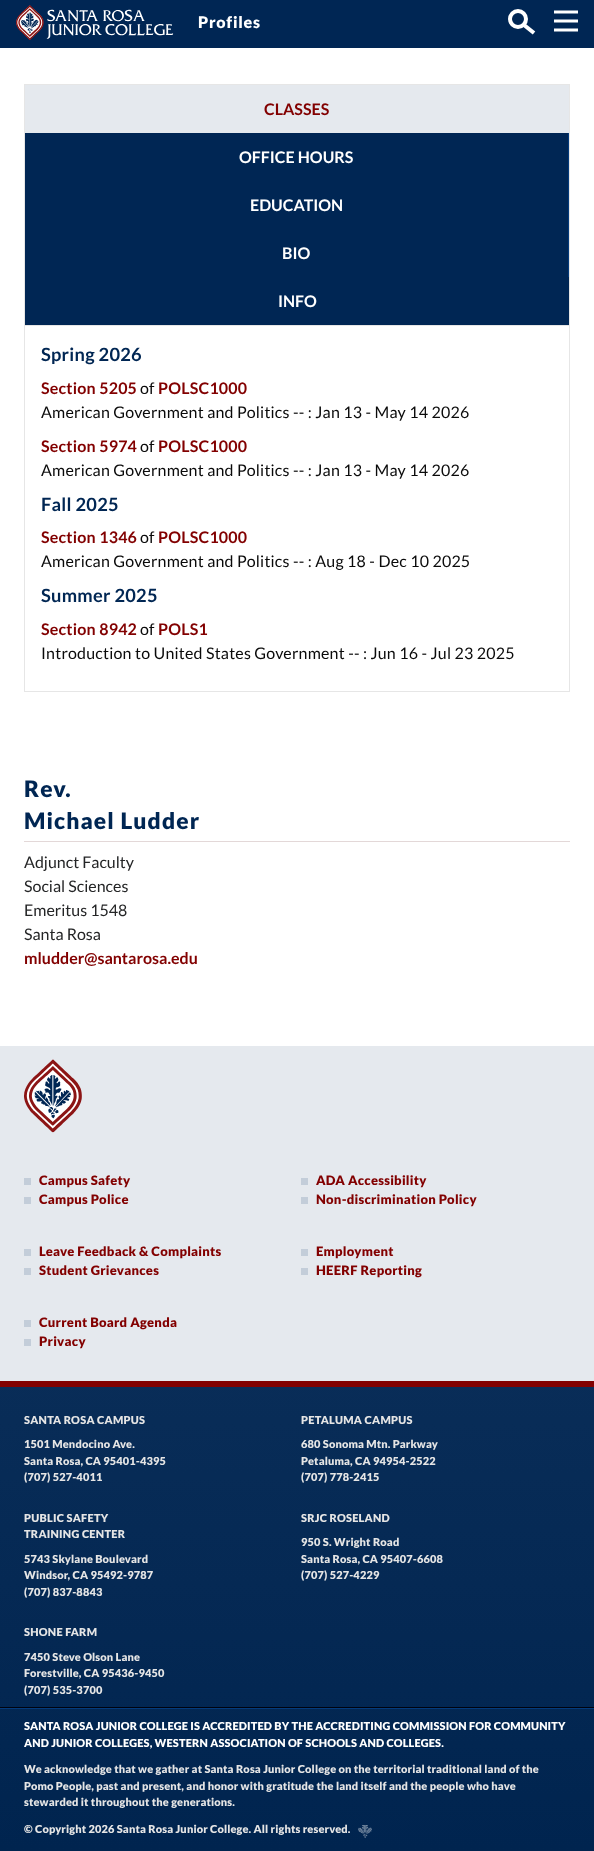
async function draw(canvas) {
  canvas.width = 594;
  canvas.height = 1851;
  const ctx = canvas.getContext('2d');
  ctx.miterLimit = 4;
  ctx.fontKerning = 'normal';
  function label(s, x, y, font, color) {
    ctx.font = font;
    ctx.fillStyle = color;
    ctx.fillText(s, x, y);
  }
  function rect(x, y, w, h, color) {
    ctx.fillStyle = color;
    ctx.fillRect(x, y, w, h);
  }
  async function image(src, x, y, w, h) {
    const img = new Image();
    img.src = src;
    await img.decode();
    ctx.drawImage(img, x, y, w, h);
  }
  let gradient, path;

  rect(0, 0, 594, 1851, '#fff');
  rect(0, 0, 594, 48, '#002654');
  await image('assets/img1.png', 16, 5, 158, 35);
  ctx.letterSpacing = '0.75px';
  label('Profiles', 198, 28, '900 16px Lato', '#fff');
  await image('assets/img2.png', 508, 9, 28, 26);
  path = new Path2D('M554 12H578M554 21H578M554 30H578');
  ctx.strokeStyle = '#fff';
  ctx.lineWidth = 3;
  ctx.stroke(path);
  ctx.strokeStyle = '#e6e6e6';
  ctx.lineWidth = 1;
  ctx.strokeRect(24.5, 84.5, 545, 241);
  rect(25, 85, 544, 48, '#e5e9ee');
  ctx.letterSpacing = '0px';
  label('CLASSES', 264, 115, 'bold 16px Lato', '#820000');
  rect(568, 133, 1, 144, '#043b7c');
  rect(25, 133, 543, 144, '#002654');
  label('OFFICE HOURS', 239, 163, 'bold 16px Lato', '#fff');
  label('EDUCATION', 250, 211, 'bold 16px Lato', '#fff');
  label('BIO', 282, 259, 'bold 16px Lato', '#fff');
  rect(25, 277, 544, 48, '#002654');
  label('INFO', 278, 307, 'bold 16px Lato', '#fff');
  rect(569, 326, 1, 366, '#e6e6e6');
  rect(24, 691, 546, 1, '#e6e6e6');
  rect(24, 326, 1, 366, '#e6e6e6');
  ctx.letterSpacing = '0.25px';
  label('Spring 2026', 41, 361, 'bold 18.25px Lato', '#002653');
  ctx.letterSpacing = '0.2px';
  label('Section 5205', 41, 394, 'bold 16px Lato', '#820000');
  label('of', 140, 394, '16px Lato', '#0a0a0a');
  label('POLSC1000', 158, 394, 'bold 16px Lato', '#820000');
  label('American Government and Politics -- : Jan 13 - May 14 2026', 41, 418, '16px Lato', '#0a0a0a');
  label('Section 5974', 41, 452, 'bold 16px Lato', '#820000');
  label('of', 140, 452, '16px Lato', '#0a0a0a');
  label('POLSC1000', 158, 452, 'bold 16px Lato', '#820000');
  label('American Government and Politics -- : Jan 13 - May 14 2026', 41, 476, '16px Lato', '#0a0a0a');
  ctx.letterSpacing = '0.25px';
  label('Fall 2025', 41, 511, 'bold 18.25px Lato', '#002653');
  ctx.letterSpacing = '0.2px';
  label('Section 1346', 41, 543, 'bold 16px Lato', '#820000');
  label('of', 140, 543, '16px Lato', '#0a0a0a');
  label('POLSC1000', 158, 543, 'bold 16px Lato', '#820000');
  label('American Government and Politics -- : Aug 18 - Dec 10 2025', 41, 567, '16px Lato', '#0a0a0a');
  ctx.letterSpacing = '0.25px';
  label('Summer 2025', 41, 602, 'bold 18.25px Lato', '#002653');
  ctx.letterSpacing = '0.2px';
  label('Section 8942', 41, 635, 'bold 16px Lato', '#820000');
  label('of', 140, 635, '16px Lato', '#0a0a0a');
  label('POLS1', 158, 635, 'bold 16px Lato', '#820000');
  label('Introduction to United States Government -- : Jun 16 - Jul 23 2025', 41, 659, '16px Lato', '#0a0a0a');
  rect(24, 841, 546, 1, '#e3d8d8');
  ctx.letterSpacing = '1.1px';
  label('Rev.', 24, 797, '900 22.75px Lato', '#002653');
  label('Michael Ludder', 24, 829, '900 22.75px Lato', '#002653');
  ctx.letterSpacing = '0px';
  label('Adjunct Faculty', 24, 868, '16px Lato', '#242526');
  label('Social Sciences', 24, 892, '16px Lato', '#242526');
  label('Emeritus 1548', 24, 916, '16px Lato', '#242526');
  label('Santa Rosa', 24, 940, '16px Lato', '#242526');
  label('mludder@santarosa.edu', 24, 964, 'bold 16px Lato', '#820000');
  gradient = ctx.createLinearGradient(297, 1046, 297, 1851);
  gradient.addColorStop(0, '#0f335e');
  gradient.addColorStop(1, '#00244f');
  ctx.fillStyle = gradient;
  ctx.fillRect(0, 1387, 594, 464);
  rect(0, 1046, 594, 335, '#e5e9ee');
  rect(0, 1381, 594, 6, '#820000');
  await image('assets/img3.png', 24, 1059, 58, 74);
  ctx.letterSpacing = '0.25px';
  label('Campus Safety', 39, 1185, '900 13px Lato', '#820000');
  rect(24, 1178, 7, 7, '#c3cdd9');
  label('Campus Police', 39, 1204, '900 13px Lato', '#820000');
  rect(24, 1197, 7, 7, '#c3cdd9');
  label('ADA Accessibility', 316, 1185, '900 13px Lato', '#820000');
  rect(301, 1178, 7, 7, '#c3cdd9');
  label('Non-discrimination Policy', 316, 1204, '900 13px Lato', '#820000');
  rect(301, 1197, 7, 7, '#c3cdd9');
  label('Leave Feedback & Complaints', 39, 1256, '900 13px Lato', '#820000');
  rect(24, 1249, 7, 7, '#c3cdd9');
  label('Student Grievances', 39, 1275, '900 13px Lato', '#820000');
  rect(24, 1268, 7, 7, '#c3cdd9');
  label('Employment', 316, 1256, '900 13px Lato', '#820000');
  rect(301, 1249, 7, 7, '#c3cdd9');
  label('HEERF Reporting', 316, 1275, '900 13px Lato', '#820000');
  rect(301, 1268, 7, 7, '#c3cdd9');
  label('Current Board Agenda', 39, 1327, '900 13px Lato', '#820000');
  rect(24, 1320, 7, 7, '#c3cdd9');
  label('Privacy', 39, 1346, '900 13px Lato', '#820000');
  rect(24, 1339, 7, 7, '#c3cdd9');
  rect(0, 1707, 594, 1, '#00030f');
  label('SANTA ROSA CAMPUS', 24, 1424, '900 11px Lato', '#e5e5e5');
  ctx.letterSpacing = '0.13px';
  label('1501 Mendocino Ave.', 24, 1448, '900 11px Lato', '#e5e5e5');
  label('Santa Rosa, CA 95401-4395', 24, 1465, '900 11px Lato', '#e5e5e5');
  label('(707) 527-4011', 24, 1481, '900 11px Lato', '#e5e5e5');
  ctx.letterSpacing = '0.25px';
  label('PETALUMA CAMPUS', 301, 1424, '900 11px Lato', '#e5e5e5');
  ctx.letterSpacing = '0.13px';
  label('680 Sonoma Mtn. Parkway', 301, 1448, '900 11px Lato', '#e5e5e5');
  label('Petaluma, CA 94954-2522', 301, 1465, '900 11px Lato', '#e5e5e5');
  label('(707) 778-2415', 301, 1481, '900 11px Lato', '#e5e5e5');
  ctx.letterSpacing = '0.25px';
  label('PUBLIC SAFETY', 24, 1522, '900 11px Lato', '#e5e5e5');
  label('TRAINING CENTER', 24, 1538, '900 11px Lato', '#e5e5e5');
  ctx.letterSpacing = '0.13px';
  label('5743 Skylane Boulevard', 24, 1563, '900 11px Lato', '#e5e5e5');
  label('Windsor, CA 95492-9787', 24, 1579, '900 11px Lato', '#e5e5e5');
  label('(707) 837-8843', 24, 1596, '900 11px Lato', '#e5e5e5');
  ctx.letterSpacing = '0.25px';
  label('SRJC ROSELAND', 301, 1522, '900 11px Lato', '#e5e5e5');
  ctx.letterSpacing = '0.13px';
  label('950 S. Wright Road', 301, 1546, '900 11px Lato', '#e5e5e5');
  label('Santa Rosa, CA 95407-6608', 301, 1563, '900 11px Lato', '#e5e5e5');
  label('(707) 527-4229', 301, 1579, '900 11px Lato', '#e5e5e5');
  ctx.letterSpacing = '0.25px';
  label('SHONE FARM', 24, 1636, '900 11px Lato', '#e5e5e5');
  ctx.letterSpacing = '0.13px';
  label('7450 Steve Olson Lane', 24, 1661, '900 11px Lato', '#e5e5e5');
  label('Forestville, CA 95436-9450', 24, 1677, '900 11px Lato', '#e5e5e5');
  label('(707) 535-3700', 24, 1694, '900 11px Lato', '#e5e5e5');
  rect(0, 1708, 594, 1, '#043b7c');
  label('SANTA ROSA JUNIOR COLLEGE IS ACCREDITED BY THE ACCREDITING COMMISSION FOR COMMUNITY', 24, 1730, '900 11px Lato', '#fff');
  label('AND JUNIOR COLLEGES, WESTERN ASSOCIATION OF SCHOOLS AND COLLEGES.', 24, 1747, '900 11px Lato', '#fff');
  label('We acknowledge that we gather at Santa Rosa Junior College on the territorial traditional land of the', 24, 1773, '900 11px Lato', '#e5e5e5');
  label('Pomo People, past and present, and honor with gratitude the land itself and the people who have', 24, 1790, '900 11px Lato', '#e5e5e5');
  label('stewarded it throughout the generations.', 24, 1806, '900 11px Lato', '#e5e5e5');
  label('© Copyright 2026 Santa Rosa Junior College. All rights reserved.', 24, 1833, '900 11px Lato', '#e5e5e5');
  await image('assets/img4.png', 358, 1825, 14, 13);
}

draw(document.querySelector('canvas'));
